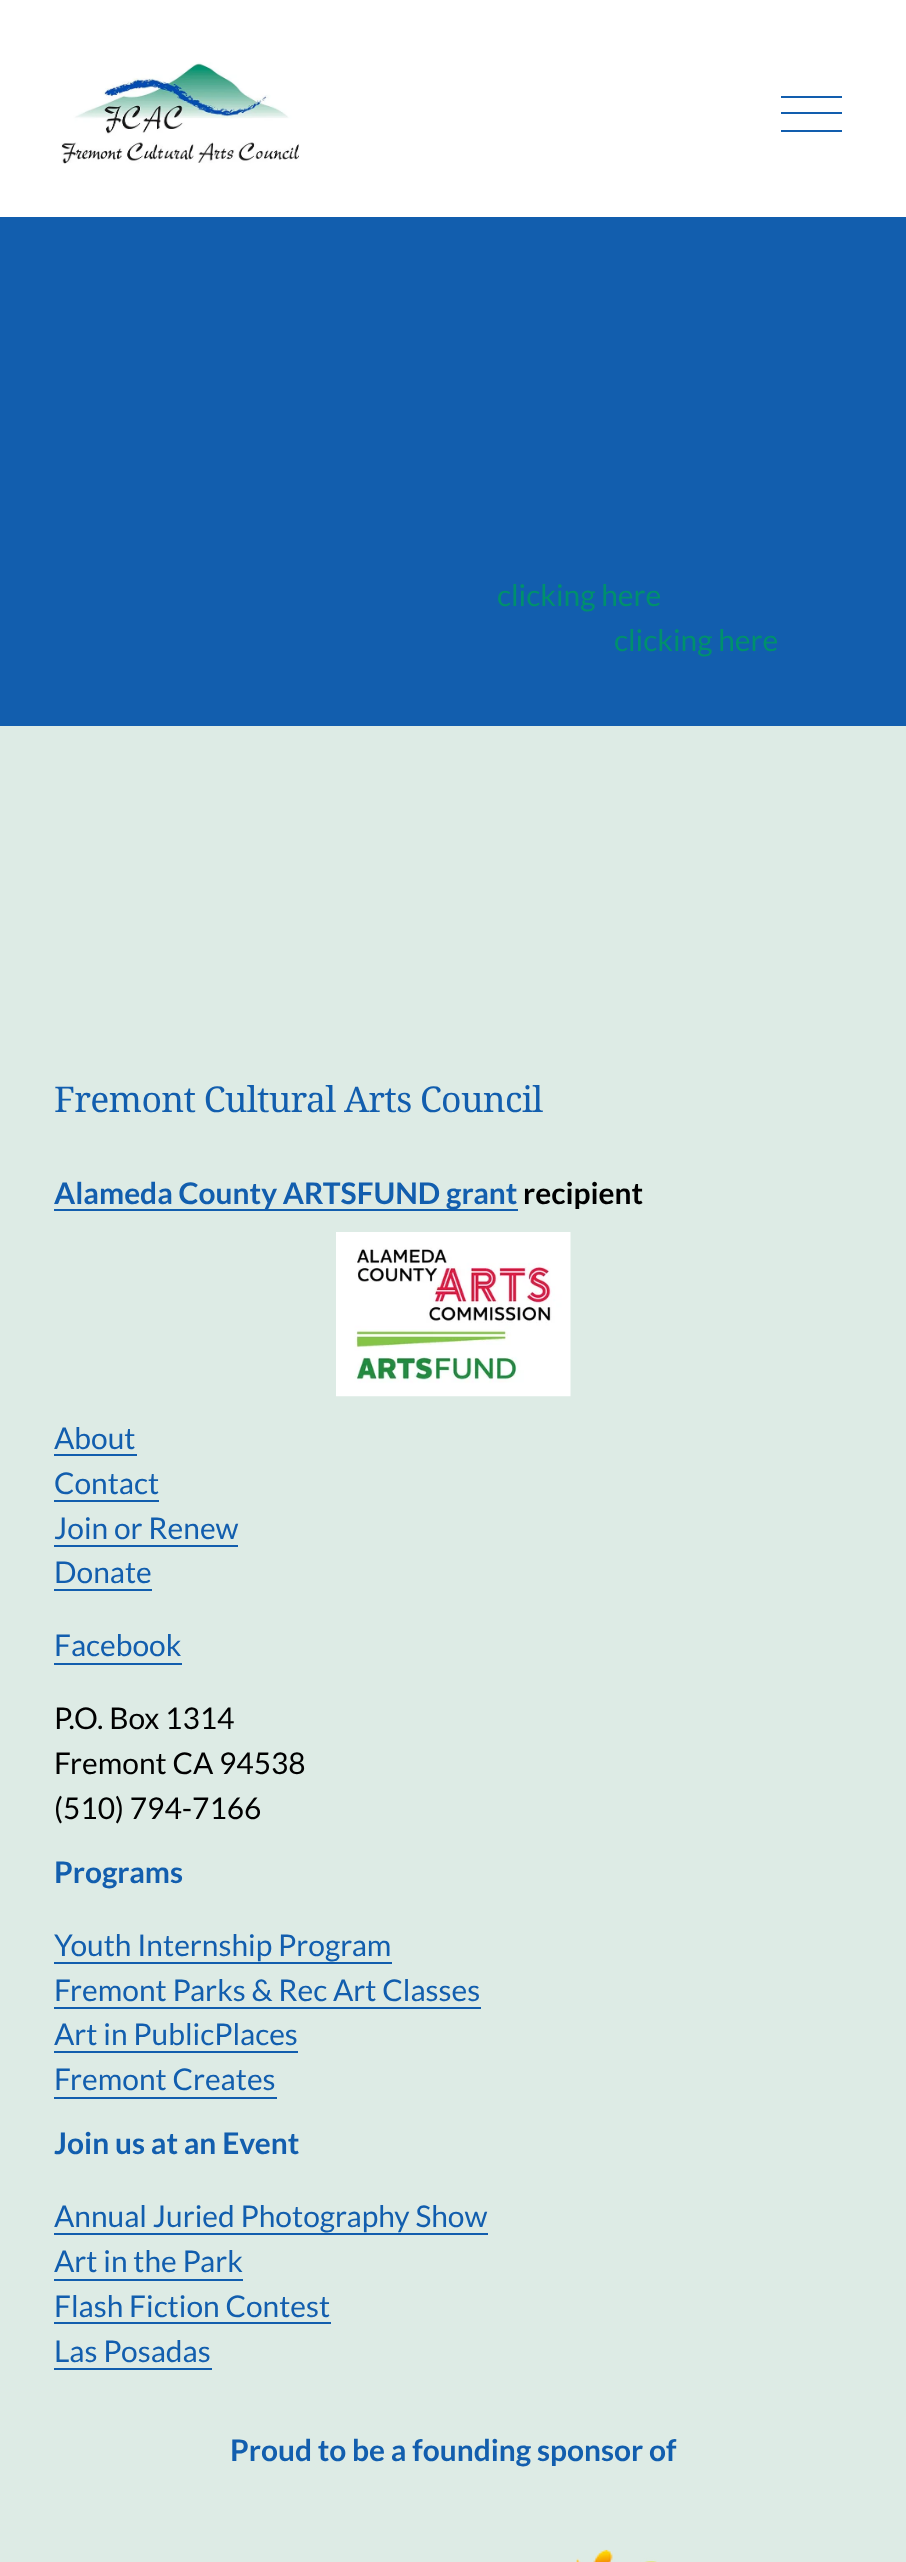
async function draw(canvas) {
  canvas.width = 906;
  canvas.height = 2562;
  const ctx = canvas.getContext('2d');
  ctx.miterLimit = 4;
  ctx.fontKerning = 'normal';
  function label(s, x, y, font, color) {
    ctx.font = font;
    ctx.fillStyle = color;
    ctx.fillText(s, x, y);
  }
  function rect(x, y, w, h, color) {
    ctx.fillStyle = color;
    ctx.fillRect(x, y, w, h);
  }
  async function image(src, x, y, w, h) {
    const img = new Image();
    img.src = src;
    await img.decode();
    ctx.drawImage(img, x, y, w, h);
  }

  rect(0, 0, 906, 2562, '#125eae');
  rect(0, 0, 906, 217, '#fff');
  await image('assets/img1.png', 61, 62, 239, 102);
  rect(781, 96, 61, 2, '#125eae');
  rect(781, 112, 61, 2, '#125eae');
  rect(781, 130, 61, 2, '#125eae');
  label('clicking here', 497, 606, '29.9px Lato', '#00906d');
  label('clicking here', 614, 651, '29.9px Lato', '#00906d');
  rect(0, 726, 906, 1836, '#ddebe5');
  ctx.letterSpacing = '-0.7px';
  label('Fremont Cultural Arts Council', 54, 1112, '35.5px Droid Serif', '#125eae');
  rect(54, 1209, 464, 2, '#125eae');
  ctx.letterSpacing = '0px';
  label('Alameda County ARTSFUND grant', 54, 1204, 'bold 29.9px Lato', '#125eae');
  label('recipient', 523, 1204, 'bold 29.9px Lato', '#000');
  await image('assets/img2.png', 336, 1232, 235, 165);
  label('About', 54, 1449, '29.9px Lato', '#125eae');
  rect(54, 1454, 83, 2, '#125eae');
  label('Contact', 54, 1494, '29.9px Lato', '#125eae');
  rect(54, 1500, 105, 2, '#125eae');
  label('Join or Renew', 54, 1539, '29.9px Lato', '#125eae');
  rect(54, 1545, 184, 2, '#125eae');
  label('Donate', 54, 1583, '29.9px Lato', '#125eae');
  rect(54, 1589, 98, 2, '#125eae');
  label('Facebook', 54, 1656, '29.9px Lato', '#125eae');
  rect(54, 1663, 128, 2, '#125eae');
  label('P.O. Box 1314', 54, 1729, '29.9px Lato', '#000');
  label('Fremont CA 94538', 54, 1774, '29.9px Lato', '#000');
  label('(510) 794-7166', 54, 1819, '29.9px Lato', '#000');
  label('Programs', 54, 1883, 'bold 29.9px Lato', '#125eae');
  label('Youth Internship Program', 54, 1956, '29.9px Lato', '#125eae');
  rect(54, 1962, 338, 2, '#125eae');
  label('Fremont Parks & Rec Art Classes', 54, 2001, '29.9px Lato', '#125eae');
  rect(54, 2007, 427, 2, '#125eae');
  label('Art in PublicPlaces', 54, 2045, '29.9px Lato', '#125eae');
  rect(54, 2051, 244, 2, '#125eae');
  label('Fremont Creates', 54, 2090, '29.9px Lato', '#125eae');
  rect(54, 2097, 223, 2, '#125eae');
  label('Join us at an Event', 54, 2154, 'bold 29.9px Lato', '#125eae');
  label('Annual Juried Photography Show', 54, 2227, '29.9px Lato', '#125eae');
  rect(54, 2233, 434, 2, '#125eae');
  label('Art in the Park', 54, 2272, '29.9px Lato', '#125eae');
  rect(54, 2279, 189, 2, '#125eae');
  label('Flash Fiction Contest', 54, 2317, '29.9px Lato', '#125eae');
  rect(54, 2322, 277, 2, '#125eae');
  label('Las Posadas', 54, 2362, '29.9px Lato', '#125eae');
  rect(54, 2368, 158, 2, '#125eae');
  label('Proud to be a founding sponsor of', 230, 2461, 'bold 29.9px Lato', '#125eae');
  await image('assets/img3.png', 576, 2549, 81, 13);
}

draw(document.querySelector('canvas'));
